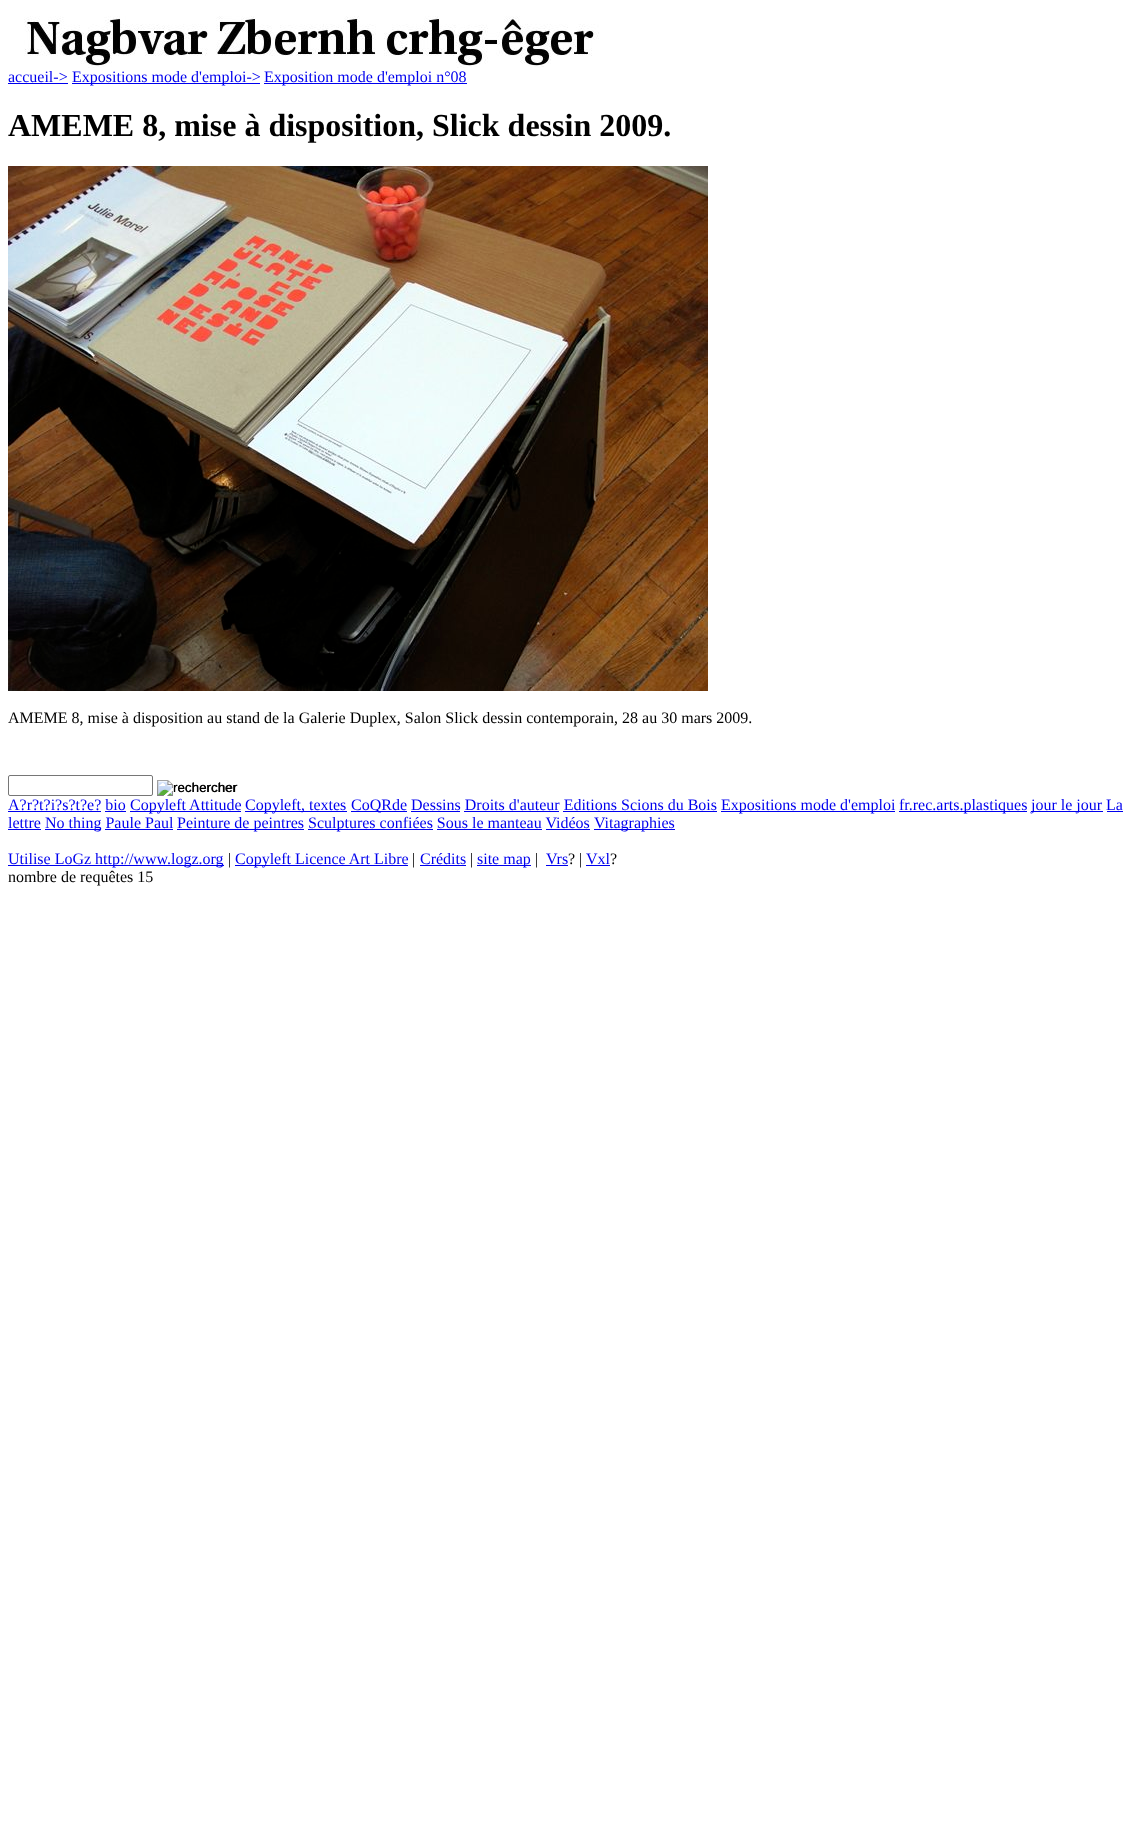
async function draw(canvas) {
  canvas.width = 1138;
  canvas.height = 1842;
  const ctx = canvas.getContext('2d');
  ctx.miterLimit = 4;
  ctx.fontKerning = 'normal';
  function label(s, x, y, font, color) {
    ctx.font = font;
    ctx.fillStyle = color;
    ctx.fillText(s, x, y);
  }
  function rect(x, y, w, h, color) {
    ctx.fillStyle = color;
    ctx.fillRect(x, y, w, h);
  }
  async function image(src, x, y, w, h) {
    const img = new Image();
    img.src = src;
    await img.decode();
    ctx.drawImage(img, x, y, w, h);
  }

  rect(0, 0, 1138, 1842, '#fff');
  await image('assets/img1.png', 24, 16, 575, 52);
  label('accueil->', 8, 82, '16px Liberation Serif', '#00e');
  rect(8, 83, 60, 1, '#00e');
  rect(72, 83, 188, 1, '#00e');
  label('Expositions mode d\'emploi->', 72, 82, '16px Liberation Serif', '#00e');
  rect(264, 83, 203, 1, '#00e');
  label('Exposition mode d\'emploi n°08', 264, 82, '16px Liberation Serif', '#00e');
  label('AMEME 8, mise à disposition, Slick dessin 2009.', 8, 136, 'bold 32px Liberation Serif', '#000');
  await image('assets/img2.png', 8, 166, 700, 525);
  label('AMEME 8, mise à disposition au stand de la Galerie Duplex, Salon Slick dessin contemporain, 28 au 30 mars 2009.', 8, 723, '16px Liberation Serif', '#000');
  ctx.beginPath();
  ctx.roundRect(8.5, 775.5, 144, 20, 1.5);
  ctx.strokeStyle = '#767676';
  ctx.stroke();
  await image('assets/img3.png', 157, 780, 80, 16);
  label('rechercher', 173, 792, '13.5px Liberation Sans', '#000');
  label('A?r?t?i?s?t?e? bio', 8, 810, '16px Liberation Serif', '#00e');
  rect(8, 811, 93, 1, '#00e');
  rect(130, 811, 111, 1, '#00e');
  label('Copyleft Attitude', 130, 810, '16px Liberation Serif', '#00e');
  rect(245, 811, 102, 1, '#00e');
  label('Copyleft, textes', 245, 810, '16px Liberation Serif', '#00e');
  rect(351, 811, 56, 1, '#00e');
  label('CoQRde Dessins Droits d\'auteur Editions Scions du Bois', 351, 810, '16px Liberation Serif', '#00e');
  rect(721, 811, 174, 1, '#00e');
  label('Expositions mode d\'emploi', 721, 810, '16px Liberation Serif', '#00e');
  rect(899, 811, 128, 1, '#00e');
  label('fr.rec.arts.plastiques', 899, 810, '16px Liberation Serif', '#00e');
  rect(1031, 811, 72, 1, '#00e');
  label('jour le jour La', 1031, 810, '16px Liberation Serif', '#00e');
  rect(105, 811, 21, 1, '#00e');
  rect(411, 811, 49, 1, '#00e');
  rect(464, 811, 95, 1, '#00e');
  rect(563, 811, 154, 1, '#00e');
  label('lettre', 8, 828, '16px Liberation Serif', '#00e');
  rect(1107, 811, 16, 1, '#00e');
  rect(8, 829, 33, 1, '#00e');
  rect(45, 829, 56, 1, '#00e');
  label('No thing Paule Paul', 45, 828, '16px Liberation Serif', '#00e');
  rect(177, 829, 127, 1, '#00e');
  label('Peinture de peintres', 177, 828, '16px Liberation Serif', '#00e');
  rect(308, 829, 125, 1, '#00e');
  label('Sculptures confiées Sous le manteau Vidéos', 308, 828, '16px Liberation Serif', '#00e');
  rect(594, 829, 81, 1, '#00e');
  label('Vitagraphies', 594, 828, '16px Liberation Serif', '#00e');
  rect(105, 829, 68, 1, '#00e');
  rect(437, 829, 105, 1, '#00e');
  rect(546, 829, 44, 1, '#00e');
  rect(8, 865, 216, 1, '#00e');
  label('Utilise LoGz http://www.logz.org', 8, 864, '16px Liberation Serif', '#00e');
  label('|', 228, 864, '16px Liberation Serif', '#000');
  rect(235, 865, 173, 1, '#00e');
  label('Copyleft Licence Art Libre', 235, 864, '16px Liberation Serif', '#00e');
  label('|', 412, 864, '16px Liberation Serif', '#000');
  label('Crédits', 420, 864, '16px Liberation Serif', '#00e');
  rect(420, 865, 46, 1, '#00e');
  label('|', 470, 864, '16px Liberation Serif', '#000');
  rect(477, 865, 54, 1, '#00e');
  label('site map', 477, 864, '16px Liberation Serif', '#00e');
  label('|', 535, 864, '16px Liberation Serif', '#000');
  label('Vrs', 546, 864, '16px Liberation Serif', '#00e');
  rect(546, 865, 22, 1, '#00e');
  label('? |', 568, 864, '16px Liberation Serif', '#000');
  label('Vxl', 586, 864, '16px Liberation Serif', '#00e');
  rect(586, 865, 24, 1, '#00e');
  label('?', 610, 864, '16px Liberation Serif', '#000');
  label('nombre de requêtes 15', 8, 882, '16px Liberation Serif', '#000');
}

draw(document.querySelector('canvas'));
